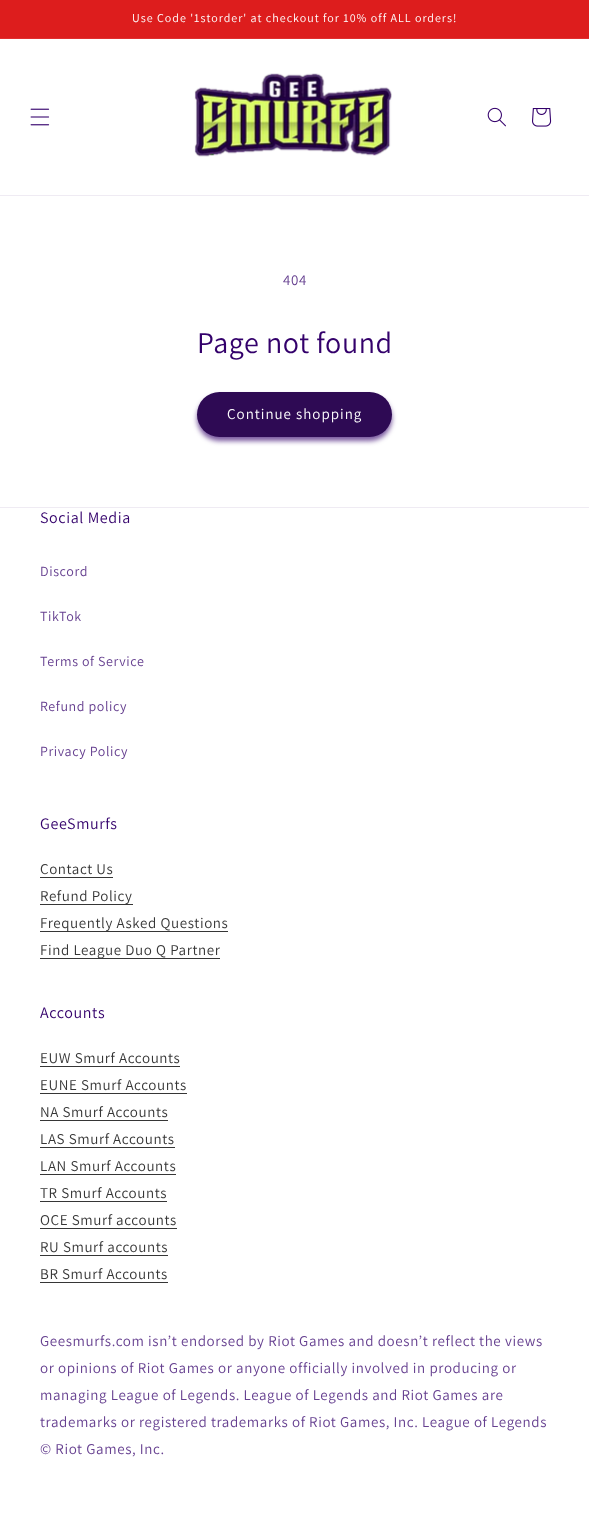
async function draw(canvas) {
  canvas.width = 589;
  canvas.height = 1520;
  const ctx = canvas.getContext('2d');
  ctx.miterLimit = 4;
  ctx.fontKerning = 'normal';
  function label(s, x, y, font, color) {
    ctx.font = font;
    ctx.fillStyle = color;
    ctx.fillText(s, x, y);
  }
  function rect(x, y, w, h, color) {
    ctx.fillStyle = color;
    ctx.fillRect(x, y, w, h);
  }
  function roundedRect(x, y, w, h, r, color) {
    ctx.fillStyle = color;
    ctx.beginPath();
    ctx.roundRect(x, y, w, h, r);
    ctx.fill();
  }
  async function image(src, x, y, w, h) {
    const img = new Image();
    img.src = src;
    await img.decode();
    ctx.drawImage(img, x, y, w, h);
  }

  rect(0, 0, 589, 1520, '#fff');
  rect(0, 0, 589, 38, '#dd1d1d');
  rect(0, 38, 589, 1, '#e02f2f');
  ctx.letterSpacing = '1px';
  label('Use Code \'1storder\' at checkout for 10% off ALL orders!', 132, 22, '12px Assistant', '#fff');
  rect(0, 195, 589, 1, '#efebf3');
  await image('assets/img1.png', 30, 108, 20, 18);
  await image('assets/img2.png', 194, 73, 198, 84);
  await image('assets/img3.png', 487, 107, 19, 20);
  await image('assets/img4.png', 532, 108, 20, 19);
  ctx.letterSpacing = '0.6px';
  label('404', 283, 285, '15px Assistant', '#664090');
  label('Page not found', 197, 353, '30px Assistant', '#33006b');
  ctx.fillStyle = '#33006ba6';
  ctx.filter = 'blur(2.5px)';
  ctx.beginPath();
  ctx.roundRect(197, 396, 195, 45, 22.5);
  ctx.fill();
  ctx.filter = 'none';
  roundedRect(197, 392, 195, 45, 22.5, '#2e0a54');
  ctx.letterSpacing = '1px';
  label('Continue shopping', 227, 419, '15px Assistant', '#fff');
  rect(0, 507, 589, 1, '#efebf3');
  ctx.letterSpacing = '0.6px';
  label('Social Media', 40, 523, '16px Assistant', '#33006b');
  label('Discord', 40, 576, '14px Assistant', '#664090');
  label('TikTok', 40, 621, '14px Assistant', '#664090');
  label('Terms of Service', 40, 666, '14px Assistant', '#664090');
  label('Refund policy', 40, 711, '14px Assistant', '#664090');
  label('Privacy Policy', 40, 756, '14px Assistant', '#664090');
  label('GeeSmurfs', 40, 829, '16px Assistant', '#33006b');
  label('Contact Us', 40, 874, '15px Assistant', '#363636');
  rect(40, 877, 73, 1, '#363636');
  rect(40, 904, 93, 1, '#363636');
  label('Refund Policy', 40, 901, '15px Assistant', '#363636');
  rect(40, 931, 188, 1, '#363636');
  label('Frequently Asked Questions', 40, 928, '15px Assistant', '#363636');
  rect(40, 958, 180, 1, '#363636');
  label('Find League Duo Q Partner', 40, 955, '15px Assistant', '#363636');
  label('Accounts', 40, 1018, '16px Assistant', '#33006b');
  label('EUW Smurf Accounts', 40, 1063, '15px Assistant', '#363636');
  rect(40, 1066, 140, 1, '#363636');
  label('EUNE Smurf Accounts', 40, 1090, '15px Assistant', '#363636');
  rect(40, 1093, 147, 1, '#363636');
  label('NA Smurf Accounts', 40, 1117, '15px Assistant', '#363636');
  rect(40, 1120, 128, 1, '#363636');
  label('LAS Smurf Accounts', 40, 1144, '15px Assistant', '#363636');
  rect(40, 1147, 135, 1, '#363636');
  label('LAN Smurf Accounts', 40, 1171, '15px Assistant', '#363636');
  rect(40, 1174, 136, 1, '#363636');
  label('TR Smurf Accounts', 40, 1198, '15px Assistant', '#363636');
  rect(40, 1201, 127, 1, '#363636');
  label('OCE Smurf accounts', 40, 1225, '15px Assistant', '#363636');
  rect(40, 1228, 137, 1, '#363636');
  label('RU Smurf accounts', 40, 1252, '15px Assistant', '#363636');
  rect(40, 1255, 128, 1, '#363636');
  label('BR Smurf Accounts', 40, 1279, '15px Assistant', '#363636');
  rect(40, 1282, 128, 1, '#363636');
  label('Geesmurfs.com isn’t endorsed by Riot Games and doesn’t reflect the views', 40, 1346, '15px Assistant', '#664090');
  label('or opinions of Riot Games or anyone officially involved in producing or', 40, 1373, '15px Assistant', '#664090');
  label('managing League of Legends. League of Legends and Riot Games are', 40, 1400, '15px Assistant', '#664090');
  label('trademarks or registered trademarks of Riot Games, Inc. League of Legends', 40, 1427, '15px Assistant', '#664090');
  label('© Riot Games, Inc.', 40, 1454, '15px Assistant', '#664090');
}

draw(document.querySelector('canvas'));
